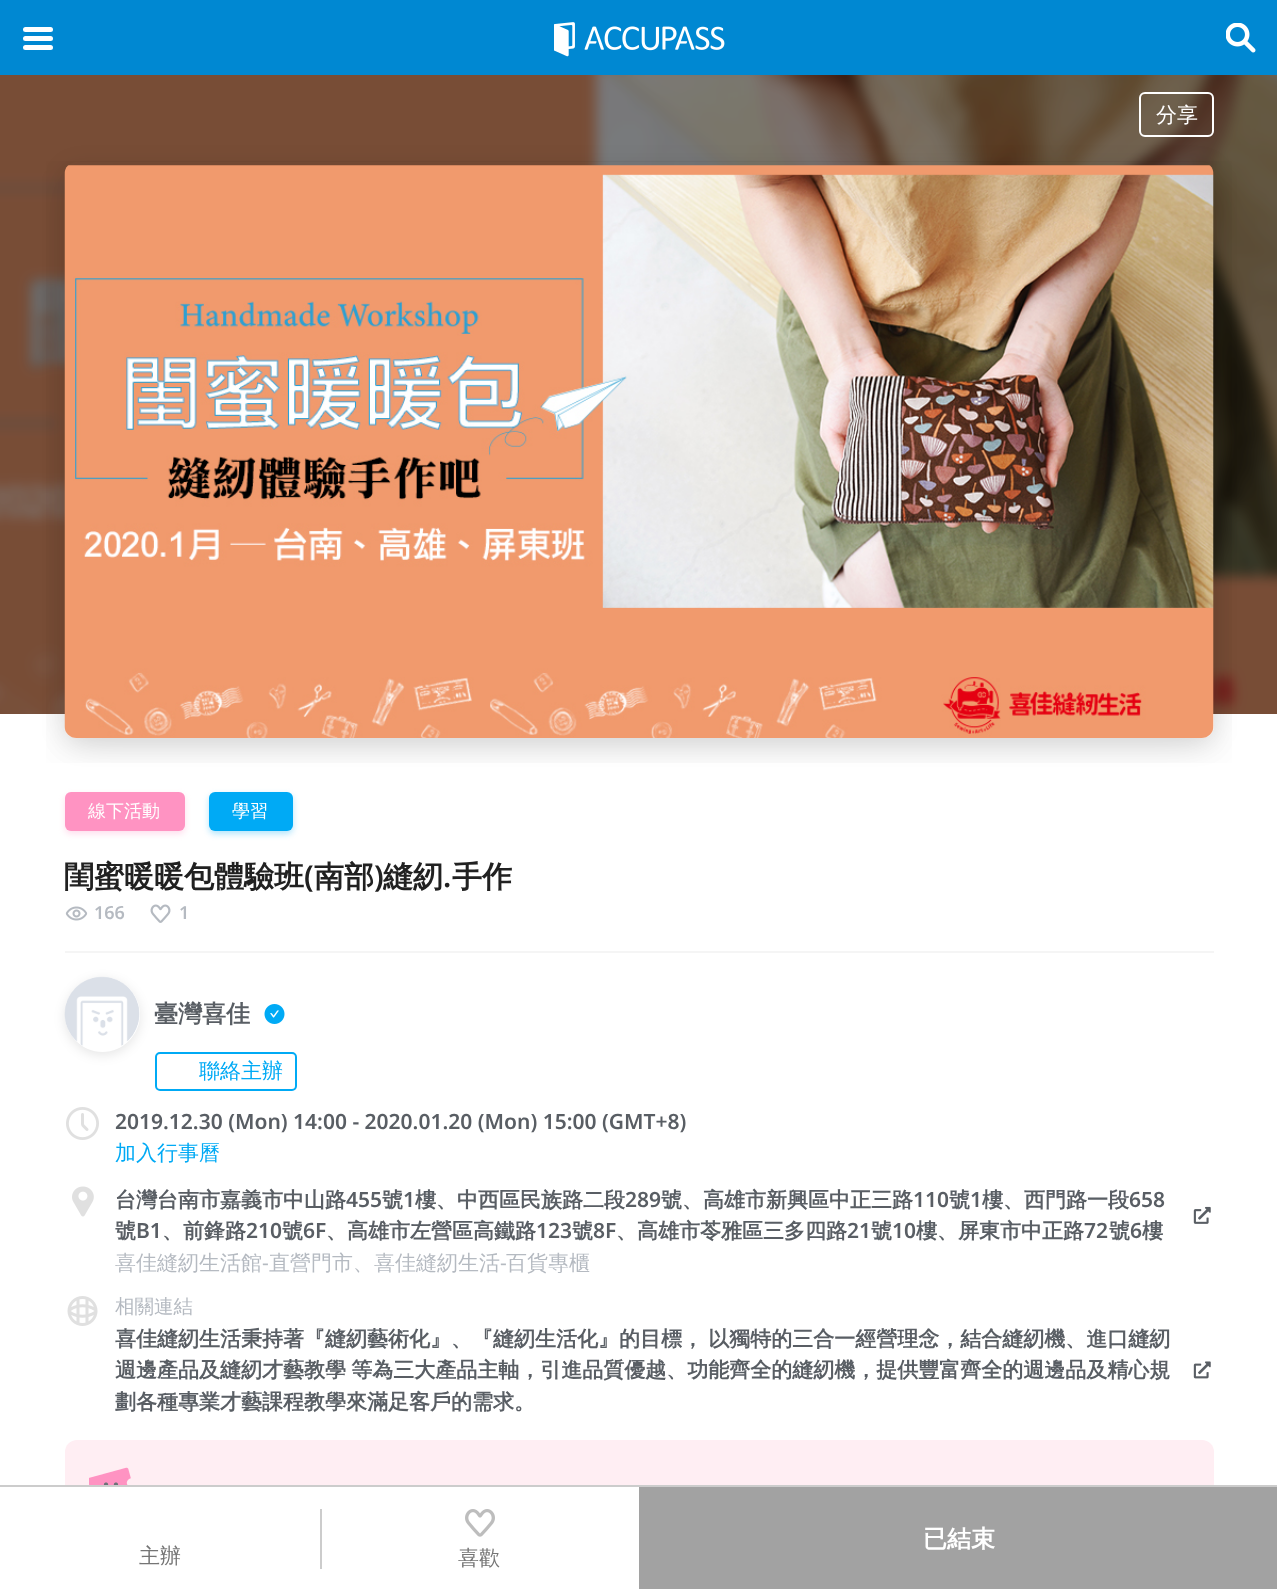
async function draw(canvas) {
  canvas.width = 1277;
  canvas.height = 1589;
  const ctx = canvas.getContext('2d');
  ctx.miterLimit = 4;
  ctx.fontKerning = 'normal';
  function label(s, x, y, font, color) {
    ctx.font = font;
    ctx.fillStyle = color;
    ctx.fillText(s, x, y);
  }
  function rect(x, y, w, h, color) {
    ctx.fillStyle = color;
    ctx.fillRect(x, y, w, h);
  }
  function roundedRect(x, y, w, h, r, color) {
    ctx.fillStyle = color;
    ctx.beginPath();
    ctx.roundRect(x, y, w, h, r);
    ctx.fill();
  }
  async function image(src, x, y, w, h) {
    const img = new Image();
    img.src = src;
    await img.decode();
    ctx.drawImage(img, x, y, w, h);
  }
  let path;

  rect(0, 0, 1277, 1589, '#fff');
  rect(0, 0, 1277, 75, '#0088d2');
  await image('assets/img1.png', 554, 22, 171, 35);
  roundedRect(23, 27, 30, 5, 2.5, '#fff');
  roundedRect(23, 36, 30, 5, 2.5, '#fff');
  roundedRect(23, 45, 30, 5, 2.5, '#fff');
  await image('assets/img2.png', 1226, 23, 30, 30);
  await image('assets/img3.png', 0, 75, 1277, 639);
  ctx.beginPath();
  ctx.roundRect(1140, 93, 73, 43, 5);
  ctx.strokeStyle = '#fff';
  ctx.lineWidth = 2;
  ctx.stroke();
  label('分享', 1156, 122, '500 21px WenQuanYi Zen Hei', '#fff');
  ctx.save();
  path = new Path2D('M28 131H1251V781H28ZM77 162H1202C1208.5 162 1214 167.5 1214 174V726C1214 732.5 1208.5 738 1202 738H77C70.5 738 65 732.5 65 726V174C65 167.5 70.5 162 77 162Z');
  ctx.clip(path, 'evenodd');
  ctx.fillStyle = '#0000001a';
  ctx.filter = 'blur(12px)';
  ctx.beginPath();
  ctx.roundRect(65, 168, 1149, 576, 12);
  ctx.fill();
  ctx.filter = 'none';
  ctx.restore();
  await image('assets/img4.png', 46, 161, 1186, 602);
  ctx.fillStyle = '#ff93c24d';
  ctx.filter = 'blur(3px)';
  ctx.beginPath();
  ctx.roundRect(65, 795, 120, 39, 6);
  ctx.fill();
  ctx.filter = 'none';
  roundedRect(65, 792, 120, 39, 6, '#ff93c2');
  label('線下活動', 88, 817, '500 18px WenQuanYi Zen Hei', '#fff');
  ctx.fillStyle = '#00aaf54d';
  ctx.filter = 'blur(3px)';
  ctx.beginPath();
  ctx.roundRect(209, 795, 84, 39, 6);
  ctx.fill();
  ctx.filter = 'none';
  roundedRect(209, 792, 84, 39, 6, '#00aaf5');
  label('學習', 232, 817, '500 18px WenQuanYi Zen Hei', '#fff');
  label('閨蜜暖暖包體驗班', 64, 887, 'bold 30px WenQuanYi Zen Hei', '#212121');
  label('(', 304, 887, '600 30px Noto Sans', '#212121');
  label('南部', 314, 887, 'bold 30px WenQuanYi Zen Hei', '#212121');
  label(')', 374, 887, '600 30px Noto Sans', '#212121');
  label('縫紉', 383, 887, 'bold 30px WenQuanYi Zen Hei', '#212121');
  label('.', 443, 887, '600 30px Noto Sans', '#212121');
  label('手作', 452, 887, 'bold 30px WenQuanYi Zen Hei', '#212121');
  await image('assets/img5.png', 65, 906, 23, 15);
  label('166', 94, 919, '600 18px Noto Sans', '#b5bac1');
  await image('assets/img6.png', 150, 904, 21, 19);
  label('1', 179, 919, '600 18px Noto Sans', '#b5bac1');
  rect(65, 951, 1149, 2, '#f5f5f5');
  ctx.beginPath();
  ctx.roundRect(156, 1053, 140, 37, 4);
  ctx.strokeStyle = '#00aaf5';
  ctx.stroke();
  ctx.save();
  path = new Path2D('M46 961H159V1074H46ZM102.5 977C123 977 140 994 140 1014.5C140 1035 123 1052 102.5 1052C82 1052 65 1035 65 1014.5C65 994 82 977 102.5 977Z');
  ctx.clip(path, 'evenodd');
  ctx.fillStyle = '#0000001a';
  ctx.filter = 'blur(6px)';
  ctx.beginPath();
  ctx.roundRect(65, 980, 75, 75, 37.5);
  ctx.fill();
  ctx.filter = 'none';
  ctx.restore();
  await image('assets/img7.png', 64, 976, 76, 70);
  label('臺灣喜佳', 154, 1022, 'bold 24px WenQuanYi Zen Hei', '#595e64');
  await image('assets/img8.png', 264, 1004, 21, 20);
  label('聯絡主辦', 199, 1078, '500 21px WenQuanYi Zen Hei', '#00aaf5');
  await image('assets/img9.png', 66, 1107, 33, 33);
  label('2019.12.30 (Mon) 14:00 - 2020.01.20 (Mon) 15:00 (GMT+8)', 115, 1129, '600 21px Noto Sans', '#595e64');
  label('加入行事曆', 115, 1160, '500 21px WenQuanYi Zen Hei', '#00aaf5');
  await image('assets/img10.png', 72, 1186, 22, 31);
  label('台灣台南市嘉義市中山路', 115, 1207, 'bold 21px WenQuanYi Zen Hei', '#595e64');
  label('455', 346, 1207, '600 21px Noto Sans', '#595e64');
  label('號', 382, 1207, 'bold 21px WenQuanYi Zen Hei', '#595e64');
  label('1', 403, 1207, '600 21px Noto Sans', '#595e64');
  label('樓、中西區民族路二段', 415, 1207, 'bold 21px WenQuanYi Zen Hei', '#595e64');
  label('289', 625, 1207, '600 21px Noto Sans', '#595e64');
  label('號、高雄市新興區中正三路', 661, 1207, 'bold 21px WenQuanYi Zen Hei', '#595e64');
  label('110', 913, 1207, '600 21px Noto Sans', '#595e64');
  label('號', 949, 1207, 'bold 21px WenQuanYi Zen Hei', '#595e64');
  label('1', 970, 1207, '600 21px Noto Sans', '#595e64');
  label('樓、西門路一段', 982, 1207, 'bold 21px WenQuanYi Zen Hei', '#595e64');
  label('658', 1129, 1207, '600 21px Noto Sans', '#595e64');
  await image('assets/img11.png', 1193, 1206, 18, 18);
  label('號', 115, 1238, 'bold 21px WenQuanYi Zen Hei', '#595e64');
  label('B1', 136, 1238, '600 21px Noto Sans', '#595e64');
  label('、前鋒路', 162, 1238, 'bold 21px WenQuanYi Zen Hei', '#595e64');
  label('210', 246, 1238, '600 21px Noto Sans', '#595e64');
  label('號', 282, 1238, 'bold 21px WenQuanYi Zen Hei', '#595e64');
  label('6F', 303, 1238, '600 21px Noto Sans', '#595e64');
  label('、高雄市左營區高鐵路', 326, 1238, 'bold 21px WenQuanYi Zen Hei', '#595e64');
  label('123', 536, 1238, '600 21px Noto Sans', '#595e64');
  label('號', 572, 1238, 'bold 21px WenQuanYi Zen Hei', '#595e64');
  label('8F', 593, 1238, '600 21px Noto Sans', '#595e64');
  label('、高雄市苓雅區三多四路', 616, 1238, 'bold 21px WenQuanYi Zen Hei', '#595e64');
  label('21', 847, 1238, '600 21px Noto Sans', '#595e64');
  label('號', 871, 1238, 'bold 21px WenQuanYi Zen Hei', '#595e64');
  label('10', 892, 1238, '600 21px Noto Sans', '#595e64');
  label('樓、屏東市中正路', 916, 1238, 'bold 21px WenQuanYi Zen Hei', '#595e64');
  label('72', 1084, 1238, '600 21px Noto Sans', '#595e64');
  label('號', 1109, 1238, 'bold 21px WenQuanYi Zen Hei', '#595e64');
  label('6', 1130, 1238, '600 21px Noto Sans', '#595e64');
  label('樓', 1142, 1238, 'bold 21px WenQuanYi Zen Hei', '#595e64');
  label('喜佳縫紉生活館', 115, 1270, '500 21px WenQuanYi Zen Hei', '#b5bac1');
  label('-', 262, 1270, '21px Noto Sans', '#b5bac1');
  label('直營門市、喜佳縫紉生活', 269, 1270, '500 21px WenQuanYi Zen Hei', '#b5bac1');
  label('-', 500, 1270, '21px Noto Sans', '#b5bac1');
  label('百貨專櫃', 506, 1270, '500 21px WenQuanYi Zen Hei', '#b5bac1');
  await image('assets/img12.png', 67, 1296, 31, 30);
  label('相關連結', 115, 1313, '500 19.5px WenQuanYi Zen Hei', '#b5bac1');
  ctx.wordSpacing = '-1px';
  label('喜佳縫紉生活秉持著『縫紉藝術化』、『縫紉生活化』的目標， 以獨特的三合一經營理念，結合縫紉機、進口縫紉', 115, 1346, 'bold 21px WenQuanYi Zen Hei', '#595e64');
  label('週邊產品及縫紉才藝教學 等為三大產品主軸，引進品質優越、功能齊全的縫紉機，提供豐富齊全的週邊品及精心規', 115, 1377, 'bold 21px WenQuanYi Zen Hei', '#595e64');
  await image('assets/img13.png', 1193, 1361, 18, 18);
  ctx.wordSpacing = '0px';
  label('劃各種專業才藝課程教學來滿足客戶的需求。', 115, 1409, 'bold 21px WenQuanYi Zen Hei', '#595e64');
  roundedRect(65, 1440, 1149, 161, 12, '#ffeef3');
  await image('assets/img14.png', 89, 1467, 42, 18);
  rect(65, 1487, 574, 102, '#fff');
  rect(0, 1485, 1277, 2, '#ccc');
  rect(639, 1487, 638, 102, '#a2a2a2');
  label('已結束', 923, 1547, 'bold 24px WenQuanYi Zen Hei', '#fff');
  label('主辦', 139, 1563, '500 21px WenQuanYi Zen Hei', '#757575');
  rect(320, 1509, 2, 60, '#ccc');
  await image('assets/img15.png', 465, 1509, 30, 28);
  label('喜歡', 458, 1565, '500 21px WenQuanYi Zen Hei', '#757575');
}

draw(document.querySelector('canvas'));
